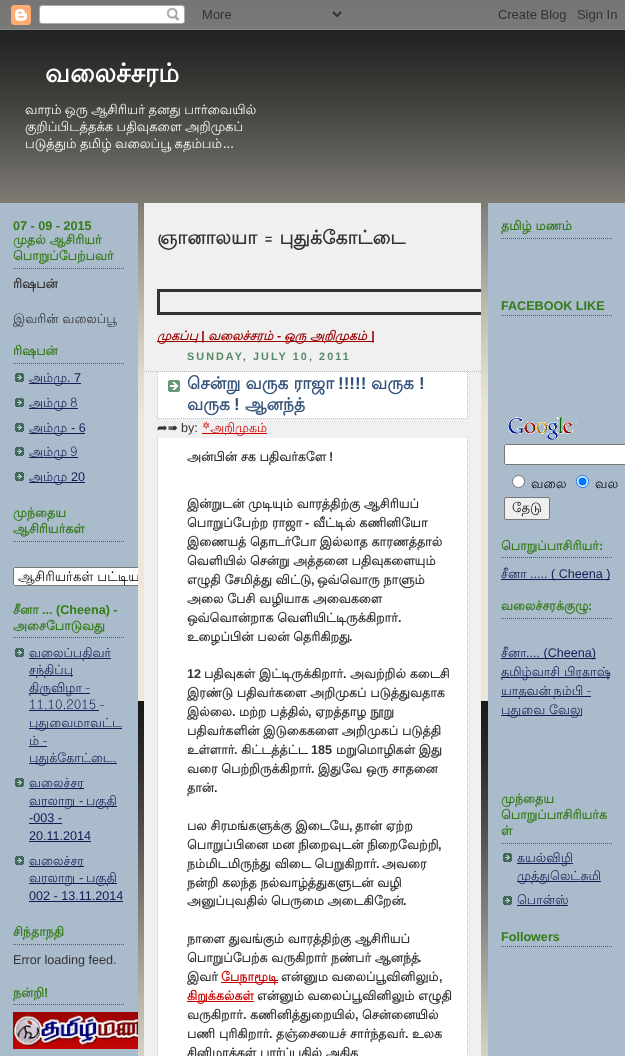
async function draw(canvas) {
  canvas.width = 625;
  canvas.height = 1056;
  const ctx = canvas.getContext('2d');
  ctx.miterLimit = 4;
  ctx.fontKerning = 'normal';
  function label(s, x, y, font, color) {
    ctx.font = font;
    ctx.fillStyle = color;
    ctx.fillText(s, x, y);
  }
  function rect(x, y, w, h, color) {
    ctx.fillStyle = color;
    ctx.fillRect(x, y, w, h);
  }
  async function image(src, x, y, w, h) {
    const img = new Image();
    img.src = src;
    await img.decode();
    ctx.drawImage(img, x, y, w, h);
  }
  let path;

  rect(0, 0, 625, 1056, '#fff');
  await image('assets/img1.png', 0, 0, 625, 1056);
  await image('assets/img2.png', 0, 0, 625, 30);
  label('வலைச்சரம்', 45, 82, 'bold 26px Lohit Tamil', '#fff');
  ctx.wordSpacing = '-0.5px';
  label('வாரம் ஒரு ஆசிரியர் தனது பார்வையில்', 25, 114, '13px Lohit Tamil', '#fff');
  label('குறிப்பிடத்தக்க பதிவுகளை அறிமுகப்', 25, 131, '13px Lohit Tamil', '#fff');
  label('படுத்தும் தமிழ் வலைப்பூ கதம்பம்', 25, 148, '13px Lohit Tamil', '#fff');
  ctx.wordSpacing = '0px';
  label('...', 223, 148, '13px Liberation Sans', '#fff');
  rect(0, 203, 138, 853, '#abc');
  path = new Path2D('M13 268.5H125');
  ctx.strokeStyle = '#347c17';
  ctx.setLineDash([1, 1]);
  ctx.stroke(path);
  label('07 - 09 - 2015', 13, 230, 'bold 12.6px Liberation Sans', '#347c17');
  label('முதல் ஆசிரியர்', 13, 244, 'bold 12.6px Lohit Tamil', '#347c17');
  label('பொறுப்பேற்பவர்', 13, 260, 'bold 12.6px Lohit Tamil', '#347c17');
  label('ரிஷபன்', 13, 288, 'bold 12.6px Lohit Tamil', '#333');
  label('இவரின் வலைப்பூ', 13, 323, '12.6px Lohit Tamil', '#333');
  path = new Path2D('M13 363.5H125');
  ctx.stroke(path);
  label('ரிஷபன்', 13, 355, 'bold 12.6px Lohit Tamil', '#347c17');
  await image('assets/img3.png', 15, 373, 9, 9);
  path = new Path2D('M13 391.5H125');
  ctx.strokeStyle = '#bbb';
  ctx.stroke(path);
  rect(29, 383, 52, 1, '#151b54');
  label('அம்மு', 29, 382, '12.6px Lohit Tamil', '#151b54');
  label('. 7', 67, 382, '12.6px Liberation Sans', '#151b54');
  await image('assets/img3.png', 15, 398, 9, 9);
  path = new Path2D('M13 416.5H125');
  ctx.stroke(path);
  rect(29, 408, 49, 1, '#151b54');
  ctx.wordSpacing = '-1px';
  label('அம்மு 8', 29, 407, '12.6px Lohit Tamil', '#151b54');
  await image('assets/img3.png', 15, 423, 9, 9);
  path = new Path2D('M13 440.5H125');
  ctx.stroke(path);
  rect(29, 433, 56, 1, '#151b54');
  ctx.wordSpacing = '0px';
  label('அம்மு', 29, 432, '12.6px Lohit Tamil', '#151b54');
  label('- 6', 71, 432, '12.6px Liberation Sans', '#151b54');
  await image('assets/img3.png', 15, 447, 9, 9);
  path = new Path2D('M13 465.5H125');
  ctx.stroke(path);
  rect(29, 457, 49, 1, '#151b54');
  ctx.wordSpacing = '-1px';
  label('அம்மு 9', 29, 456, '12.6px Lohit Tamil', '#151b54');
  await image('assets/img3.png', 15, 472, 9, 9);
  path = new Path2D('M13 490.5H125');
  ctx.stroke(path);
  rect(29, 482, 56, 1, '#151b54');
  ctx.wordSpacing = '0px';
  label('அம்மு', 29, 481, '12.6px Lohit Tamil', '#151b54');
  label('20', 71, 481, '12.6px Liberation Sans', '#151b54');
  path = new Path2D('M13 541.5H125');
  ctx.strokeStyle = '#347c17';
  ctx.stroke(path);
  label('முந்தைய', 13, 517, 'bold 12.6px Lohit Tamil', '#347c17');
  label('ஆசிரியர்கள்', 13, 533, 'bold 12.6px Lohit Tamil', '#347c17');
  ctx.fillStyle = '#fff';
  ctx.beginPath();
  ctx.roundRect(13, 567, 125, 19, [2, 0, 0, 2]);
  ctx.fill();
  ctx.save();
  ctx.beginPath();
  ctx.rect(0, 203, 138, 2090);
  ctx.clip();
  ctx.beginPath();
  ctx.roundRect(13.5, 567.5, 199, 18, 1.5);
  ctx.strokeStyle = '#767676';
  ctx.setLineDash([]);
  ctx.stroke();
  ctx.restore();
  ctx.save();
  ctx.beginPath();
  ctx.rect(18, 568, 120, 17);
  ctx.clip();
  label('ஆசிரியர்கள் பட்டிய', 18, 581, '13.25px Lohit Tamil', '#000');
  ctx.restore();
  path = new Path2D('M13 637.5H125');
  ctx.stroke(path);
  label('சீனா', 13, 614, 'bold 12.6px Lohit Tamil', '#347c17');
  label('... (Cheena) -', 42, 614, 'bold 12.6px Liberation Sans', '#347c17');
  label('அசைபோடுவது', 13, 630, 'bold 12.6px Lohit Tamil', '#347c17');
  await image('assets/img3.png', 15, 648, 9, 9);
  path = new Path2D('M13 771.5H125');
  ctx.strokeStyle = '#bbb';
  ctx.stroke(path);
  rect(29, 658, 82, 1, '#151b54');
  label('வலைப்பதிவர்', 29, 657, '12.6px Lohit Tamil', '#151b54');
  rect(29, 675, 44, 1, '#151b54');
  label('சந்திப்பு', 29, 674, '12.6px Lohit Tamil', '#151b54');
  rect(29, 693, 61, 1, '#151b54');
  ctx.wordSpacing = '-1px';
  label('திருவிழா -', 29, 692, '12.6px Lohit Tamil', '#151b54');
  label('11.10.2015 -', 29, 709, '12.6px Lohit Tamil', '#151b54');
  rect(29, 710, 70, 1, '#151b54');
  rect(29, 728, 93, 1, '#151b54');
  ctx.wordSpacing = '0px';
  label('புதுவைமாவட்ட', 29, 727, '12.6px Lohit Tamil', '#151b54');
  ctx.wordSpacing = '-1px';
  label('ம் -', 29, 745, '12.6px Lohit Tamil', '#151b54');
  rect(29, 746, 18, 1, '#151b54');
  rect(29, 763, 88, 1, '#151b54');
  ctx.wordSpacing = '0px';
  label('புதுக்கோட்டை.', 29, 762, '12.6px Lohit Tamil', '#151b54');
  await image('assets/img3.png', 15, 778, 9, 9);
  path = new Path2D('M13 849.5H125');
  ctx.stroke(path);
  rect(29, 788, 55, 1, '#151b54');
  label('வலைச்சர', 29, 787, '12.6px Lohit Tamil', '#151b54');
  rect(29, 806, 88, 1, '#151b54');
  label('வரலாறு', 29, 805, '12.6px Lohit Tamil', '#151b54');
  label('-', 79, 805, '12.6px Liberation Sans', '#151b54');
  label('பகுதி', 86, 805, '12.6px Lohit Tamil', '#151b54');
  label('-003 -', 29, 822, '12.6px Liberation Sans', '#151b54');
  rect(29, 823, 33, 1, '#151b54');
  label('20.11.2014', 29, 840, '12.6px Liberation Sans', '#151b54');
  rect(29, 841, 62, 1, '#151b54');
  await image('assets/img3.png', 15, 856, 9, 9);
  path = new Path2D('M13 909.5H125');
  ctx.stroke(path);
  rect(29, 866, 55, 1, '#151b54');
  label('வலைச்சர', 29, 865, '12.6px Lohit Tamil', '#151b54');
  rect(29, 883, 88, 1, '#151b54');
  label('வரலாறு', 29, 882, '12.6px Lohit Tamil', '#151b54');
  label('-', 79, 882, '12.6px Liberation Sans', '#151b54');
  label('பகுதி', 86, 882, '12.6px Lohit Tamil', '#151b54');
  label('002 - 13.11.2014', 29, 900, '12.6px Liberation Sans', '#151b54');
  rect(29, 901, 94, 1, '#151b54');
  path = new Path2D('M13 944.5H125');
  ctx.strokeStyle = '#347c17';
  ctx.stroke(path);
  label('சிந்தாநதி', 13, 936, 'bold 12.6px Lohit Tamil', '#347c17');
  label('Error loading feed.', 13, 964, '12.6px Liberation Sans', '#333');
  path = new Path2D('M13 1004.5H125');
  ctx.stroke(path);
  label('நன்றி', 13, 997, 'bold 12.6px Lohit Tamil', '#347c17');
  label('!', 44, 997, 'bold 12.6px Liberation Sans', '#347c17');
  await image('assets/img4.png', 13, 1012, 125, 37);
  rect(144, 203, 337, 853, '#f0f0f0');
  ctx.wordSpacing = '1px';
  label('ஞானாலயா = புதுக்கோட்டை', 157, 244, 'bold 18.9px Lohit Tamil', '#333');
  ctx.save();
  ctx.beginPath();
  ctx.rect(144, 203, 337, 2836);
  ctx.clip();
  ctx.strokeStyle = '#333';
  ctx.lineWidth = 3;
  ctx.setLineDash([]);
  ctx.strokeRect(158.5, 290.5, 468, 23);
  ctx.restore();
  rect(157, 341, 217, 1, '#900');
  ctx.wordSpacing = '0px';
  label('முகப்பு', 157, 340, 'italic bold 12.6px Lohit Tamil', '#900');
  label('|', 201, 340, 'italic bold 12.6px Liberation Sans', '#900');
  label('வலைச்சரம்', 208, 340, 'italic bold 12.6px Lohit Tamil', '#900');
  label('-', 277, 340, 'italic bold 12.6px Liberation Sans', '#900');
  label('ஒரு அறிமுகம்', 284, 340, 'italic bold 12.6px Lohit Tamil', '#900');
  label('|', 371, 340, 'italic bold 12.6px Liberation Sans', '#900');
  ctx.letterSpacing = '2.1px';
  label('SUNDAY, JULY 10, 2011', 187, 360, 'bold 10.75px Liberation Sans', '#586');
  path = new Path2D('M144 371.5H481');
  ctx.strokeStyle = '#bbb';
  ctx.stroke(path);
  rect(157, 372, 311, 47, '#fff');
  await image('assets/img5.png', 168, 380, 12, 12);
  path = new Path2D('M467.5 372V419');
  ctx.stroke(path);
  path = new Path2D('M157 418.5H468');
  ctx.stroke(path);
  path = new Path2D('M157.5 372V419');
  ctx.stroke(path);
  ctx.letterSpacing = '0px';
  label('சென்று வருக ராஜா', 187, 389, 'bold 17px Lohit Tamil', '#32527a');
  label('!!!!!', 338, 389, 'bold 17px Liberation Sans', '#32527a');
  label('வருக', 371, 389, 'bold 17px Lohit Tamil', '#32527a');
  label('!', 419, 389, 'bold 17px Liberation Sans', '#32527a');
  label('வருக', 187, 410, 'bold 17px Lohit Tamil', '#32527a');
  label('!', 234, 410, 'bold 17px Liberation Sans', '#32527a');
  label('ஆனந்த்', 245, 410, 'bold 17px Lohit Tamil', '#32527a');
  label('➦➠', 157, 432, '12.6px DejaVu Sans', '#333');
  label('by:', 181, 432, '12.6px Liberation Sans', '#333');
  rect(202, 433, 65, 1, '#c00');
  label('*அறிமுகம்', 202, 432, '12.6px Lohit Tamil', '#c00');
  rect(157, 438, 311, 618, '#fff');
  path = new Path2D('M467.5 438V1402');
  ctx.stroke(path);
  path = new Path2D('M157.5 438V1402');
  ctx.stroke(path);
  label('அன்பின் சக பதிவர்களே', 187, 461, 'bold 12.6px Lohit Tamil', '#333');
  label('!', 329, 461, 'bold 12.6px Liberation Sans', '#333');
  label('இன்றுடன் முடியும் வாரத்திற்கு ஆசிரியப்', 187, 508, 'bold 12.6px Lohit Tamil', '#333');
  label('பொறுப்பேற்ற ராஜா', 187, 527, 'bold 12.6px Lohit Tamil', '#333');
  label('-', 305, 527, 'bold 12.6px Liberation Sans', '#333');
  label('வீட்டில் கணினியோ', 313, 527, 'bold 12.6px Lohit Tamil', '#333');
  label('இணையத் தொடர்போ இல்லாத காரணத்தால்', 187, 546, 'bold 12.6px Lohit Tamil', '#333');
  label('வெளியில் சென்று அத்தனை பதிவுகளையும்', 187, 565, 'bold 12.6px Lohit Tamil', '#333');
  label('எழுதி சேமித்து விட்டு', 187, 584, 'bold 12.6px Lohit Tamil', '#333');
  label(',', 311, 584, 'bold 12.6px Liberation Sans', '#333');
  label('ஒவ்வொரு நாளும்', 317, 584, 'bold 12.6px Lohit Tamil', '#333');
  label('அலை பேசி வழியாக அவைகளை', 187, 603, 'bold 12.6px Lohit Tamil', '#333');
  label('ஒவ்வொன்றாக வெளியிட்டிருக்கிறார்', 187, 622, 'bold 12.6px Lohit Tamil', '#333');
  label('.', 398, 622, 'bold 12.6px Liberation Sans', '#333');
  label('உழைப்பின் பலன் தெரிகிறது', 187, 641, 'bold 12.6px Lohit Tamil', '#333');
  label('.', 349, 641, 'bold 12.6px Liberation Sans', '#333');
  label('12', 187, 678, 'bold 12.6px Liberation Sans', '#333');
  label('பதிவுகள் இட்டிருக்கிறார்', 204, 678, 'bold 12.6px Lohit Tamil', '#333');
  label('.', 343, 678, 'bold 12.6px Liberation Sans', '#333');
  label('அவற்றில் கடைசி', 350, 678, 'bold 12.6px Lohit Tamil', '#333');
  label('இரண்டு பதிவர்களை அறிமுகப் படுத்துவதாக', 187, 697, 'bold 12.6px Lohit Tamil', '#333');
  label('இல்லை', 187, 716, 'bold 12.6px Lohit Tamil', '#333');
  label('.', 232, 716, 'bold 12.6px Liberation Sans', '#333');
  label('மற்ற பத்தில்', 239, 716, 'bold 12.6px Lohit Tamil', '#333');
  label(',', 308, 716, 'bold 12.6px Liberation Sans', '#333');
  label('ஏறத்தாழ நூறு', 315, 716, 'bold 12.6px Lohit Tamil', '#333');
  label('பதிவர்களின் இடுகைகளை அறிமுகப் படுத்தி', 187, 735, 'bold 12.6px Lohit Tamil', '#333');
  label('உள்ளார்', 187, 754, 'bold 12.6px Lohit Tamil', '#333');
  label('.', 234, 754, 'bold 12.6px Liberation Sans', '#333');
  label('கிட்டத்த்ட்ட', 241, 754, 'bold 12.6px Lohit Tamil', '#333');
  label('185', 311, 754, 'bold 12.6px Liberation Sans', '#333');
  label('மறுமொழிகள் இது', 336, 754, 'bold 12.6px Lohit Tamil', '#333');
  label('வரை பெற்றிருக்கிறார்', 187, 773, 'bold 12.6px Lohit Tamil', '#333');
  label('.', 311, 773, 'bold 12.6px Liberation Sans', '#333');
  label('இதுவே ஒரு சாதனை', 318, 773, 'bold 12.6px Lohit Tamil', '#333');
  label('தான்', 187, 792, 'bold 12.6px Lohit Tamil', '#333');
  label('.', 214, 792, 'bold 12.6px Liberation Sans', '#333');
  label('பல சிரமங்களுக்கு இடையே', 187, 830, 'bold 12.6px Lohit Tamil', '#333');
  label(',', 349, 830, 'bold 12.6px Liberation Sans', '#333');
  label('தான் ஏற்ற', 355, 830, 'bold 12.6px Lohit Tamil', '#333');
  label('பொறுப்பினை மன நிறைவுடன் நிறைவேற்றி', 187, 849, 'bold 12.6px Lohit Tamil', '#333');
  label(',', 438, 849, 'bold 12.6px Liberation Sans', '#333');
  label('நம்மிடமிருந்து விடை பெறுகிறார்', 187, 868, 'bold 12.6px Lohit Tamil', '#333');
  label('.', 376, 868, 'bold 12.6px Liberation Sans', '#333');
  label('அவரை', 382, 868, 'bold 12.6px Lohit Tamil', '#333');
  label('நன்றி கலந்த நல்வாழ்த்துகளுடன் வழி', 187, 887, 'bold 12.6px Lohit Tamil', '#333');
  label('அனுப்புவதில் பெருமை அடைகிறேன்', 187, 905, 'bold 12.6px Lohit Tamil', '#333');
  label('.', 403, 905, 'bold 12.6px Liberation Sans', '#333');
  label('நாளை துவங்கும் வாரத்திற்கு ஆசிரியப்', 187, 943, 'bold 12.6px Lohit Tamil', '#333');
  label('பொறுப்பேற்க வருகிறார் நண்பர் ஆனந்த்', 187, 962, 'bold 12.6px Lohit Tamil', '#333');
  label('.', 418, 962, 'bold 12.6px Liberation Sans', '#333');
  label('இவர்', 187, 981, 'bold 12.6px Lohit Tamil', '#333');
  rect(221, 982, 57, 1, '#c00');
  label('பேநாமூடி', 221, 981, 'bold 12.6px Lohit Tamil', '#c00');
  label('என்னும வலைப்பூவினிலும்', 281, 981, 'bold 12.6px Lohit Tamil', '#333');
  label(',', 439, 981, 'bold 12.6px Liberation Sans', '#333');
  rect(187, 1001, 67, 1, '#c00');
  label('கிறுக்கல்கள்', 187, 1000, 'bold 12.6px Lohit Tamil', '#c00');
  label('என்னும் வலைப்பூவினிலும் எழுதி', 257, 1000, 'bold 12.6px Lohit Tamil', '#333');
  label('வருகிறார்', 187, 1019, 'bold 12.6px Lohit Tamil', '#333');
  label('.', 243, 1019, 'bold 12.6px Liberation Sans', '#333');
  label('கணினித்துறையில்', 250, 1019, 'bold 12.6px Lohit Tamil', '#333');
  label(',', 355, 1019, 'bold 12.6px Liberation Sans', '#333');
  label('சென்னையில்', 362, 1019, 'bold 12.6px Lohit Tamil', '#333');
  label('பணி புரிகிறார்', 187, 1038, 'bold 12.6px Lohit Tamil', '#333');
  label('.', 269, 1038, 'bold 12.6px Liberation Sans', '#333');
  label('தஞ்சையைச் சார்ந்தவர்', 276, 1038, 'bold 12.6px Lohit Tamil', '#333');
  label('.', 405, 1038, 'bold 12.6px Liberation Sans', '#333');
  label('உலக', 412, 1038, 'bold 12.6px Lohit Tamil', '#333');
  label('சினிமாக்கள் பார்ப்பதில் அதிக', 187, 1057, 'bold 12.6px Lohit Tamil', '#333');
  rect(488, 203, 137, 853, '#abc');
  path = new Path2D('M501 238.5H612');
  ctx.strokeStyle = '#347c17';
  ctx.stroke(path);
  label('தமிழ் மணம்', 501, 230, 'bold 12.6px Lohit Tamil', '#347c17');
  path = new Path2D('M501 315.5H612');
  ctx.stroke(path);
  label('FACEBOOK LIKE', 501, 310, 'bold 12.6px Liberation Sans', '#347c17');
  await image('assets/img6.png', 508, 417, 70, 23);
  ctx.fillStyle = '#fff';
  ctx.beginPath();
  ctx.roundRect(504, 444, 121, 21, [2, 0, 0, 2]);
  ctx.fill();
  ctx.beginPath();
  ctx.roundRect(504.5, 444.5, 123, 20, 1.5);
  ctx.strokeStyle = '#767676';
  ctx.setLineDash([]);
  ctx.stroke();
  ctx.beginPath();
  ctx.arc(518.5, 481.5, 6, 0, 2 * Math.PI);
  ctx.fill();
  ctx.stroke();
  label('வலை', 531, 488, '13px Lohit Tamil', '#000');
  ctx.fillStyle = '#fff';
  ctx.beginPath();
  ctx.arc(582.5, 481.5, 6, 0, 2 * Math.PI);
  ctx.fill();
  ctx.strokeStyle = '#0075ff';
  ctx.stroke();
  ctx.fillStyle = '#0075ff';
  ctx.beginPath();
  ctx.arc(582.5, 481.5, 4, 0, 2 * Math.PI);
  ctx.fill();
  label('வல', 595, 488, '13px Lohit Tamil', '#000');
  ctx.fillStyle = '#efefef';
  ctx.beginPath();
  ctx.roundRect(504.5, 497.5, 45, 22, 1.5);
  ctx.fill();
  ctx.strokeStyle = '#767676';
  ctx.stroke();
  label('தேடு', 512, 512, '13.25px Lohit Tamil', '#000');
  path = new Path2D('M501 557.5H612');
  ctx.strokeStyle = '#347c17';
  ctx.setLineDash([1, 1]);
  ctx.stroke(path);
  label('பொறுப்பாசிரியர்', 501, 550, 'bold 12.6px Lohit Tamil', '#347c17');
  label(':', 599, 550, 'bold 12.6px Liberation Sans', '#347c17');
  label('சீனா', 501, 578, '12.6px Lohit Tamil', '#151b54');
  rect(501, 579, 109, 1, '#151b54');
  label('..... ( Cheena )', 530, 578, '12.6px Liberation Sans', '#151b54');
  path = new Path2D('M501 618.5H612');
  ctx.stroke(path);
  label('வலைச்சரக்குழு', 501, 610, 'bold 12.6px Lohit Tamil', '#347c17');
  label(':', 588, 610, 'bold 12.6px Liberation Sans', '#347c17');
  label('சீனா', 501, 657, '12.6px Lohit Tamil', '#151b54');
  rect(501, 658, 95, 1, '#151b54');
  label('.... (Cheena)', 526, 657, '12.6px Liberation Sans', '#151b54');
  rect(501, 677, 109, 1, '#151b54');
  label('தமிழ்வாசி பிரகாஷ்', 501, 676, '12.6px Lohit Tamil', '#151b54');
  rect(501, 696, 90, 1, '#151b54');
  ctx.wordSpacing = '-1px';
  label('யாதவன் நம்பி -', 501, 695, '12.6px Lohit Tamil', '#151b54');
  rect(501, 715, 81, 1, '#151b54');
  ctx.wordSpacing = '0px';
  label('புதுவை வேலு', 501, 714, '12.6px Lohit Tamil', '#151b54');
  path = new Path2D('M501 843.5H612');
  ctx.stroke(path);
  label('முந்தைய', 501, 803, 'bold 12.6px Lohit Tamil', '#347c17');
  label('பொறுப்பாசிரியர்க', 501, 819, 'bold 12.6px Lohit Tamil', '#347c17');
  label('ள்', 501, 835, 'bold 12.6px Lohit Tamil', '#347c17');
  await image('assets/img3.png', 503, 853, 9, 9);
  path = new Path2D('M501 888.5H612');
  ctx.strokeStyle = '#bbb';
  ctx.stroke(path);
  rect(517, 863, 56, 1, '#151b54');
  label('கயல்விழி', 517, 862, '12.6px Lohit Tamil', '#151b54');
  rect(517, 881, 84, 1, '#151b54');
  label('முத்துலெட்சுமி', 517, 880, '12.6px Lohit Tamil', '#151b54');
  await image('assets/img3.png', 503, 896, 9, 9);
  path = new Path2D('M501 913.5H612');
  ctx.stroke(path);
  label('பொன்ஸ்', 517, 904, '12.6px Lohit Tamil', '#151b54');
  rect(517, 905, 51, 1, '#151b54');
  path = new Path2D('M501 946.5H612');
  ctx.strokeStyle = '#347c17';
  ctx.stroke(path);
  label('Followers', 501, 941, 'bold 12.6px Liberation Sans', '#347c17');
}

draw(document.querySelector('canvas'));
